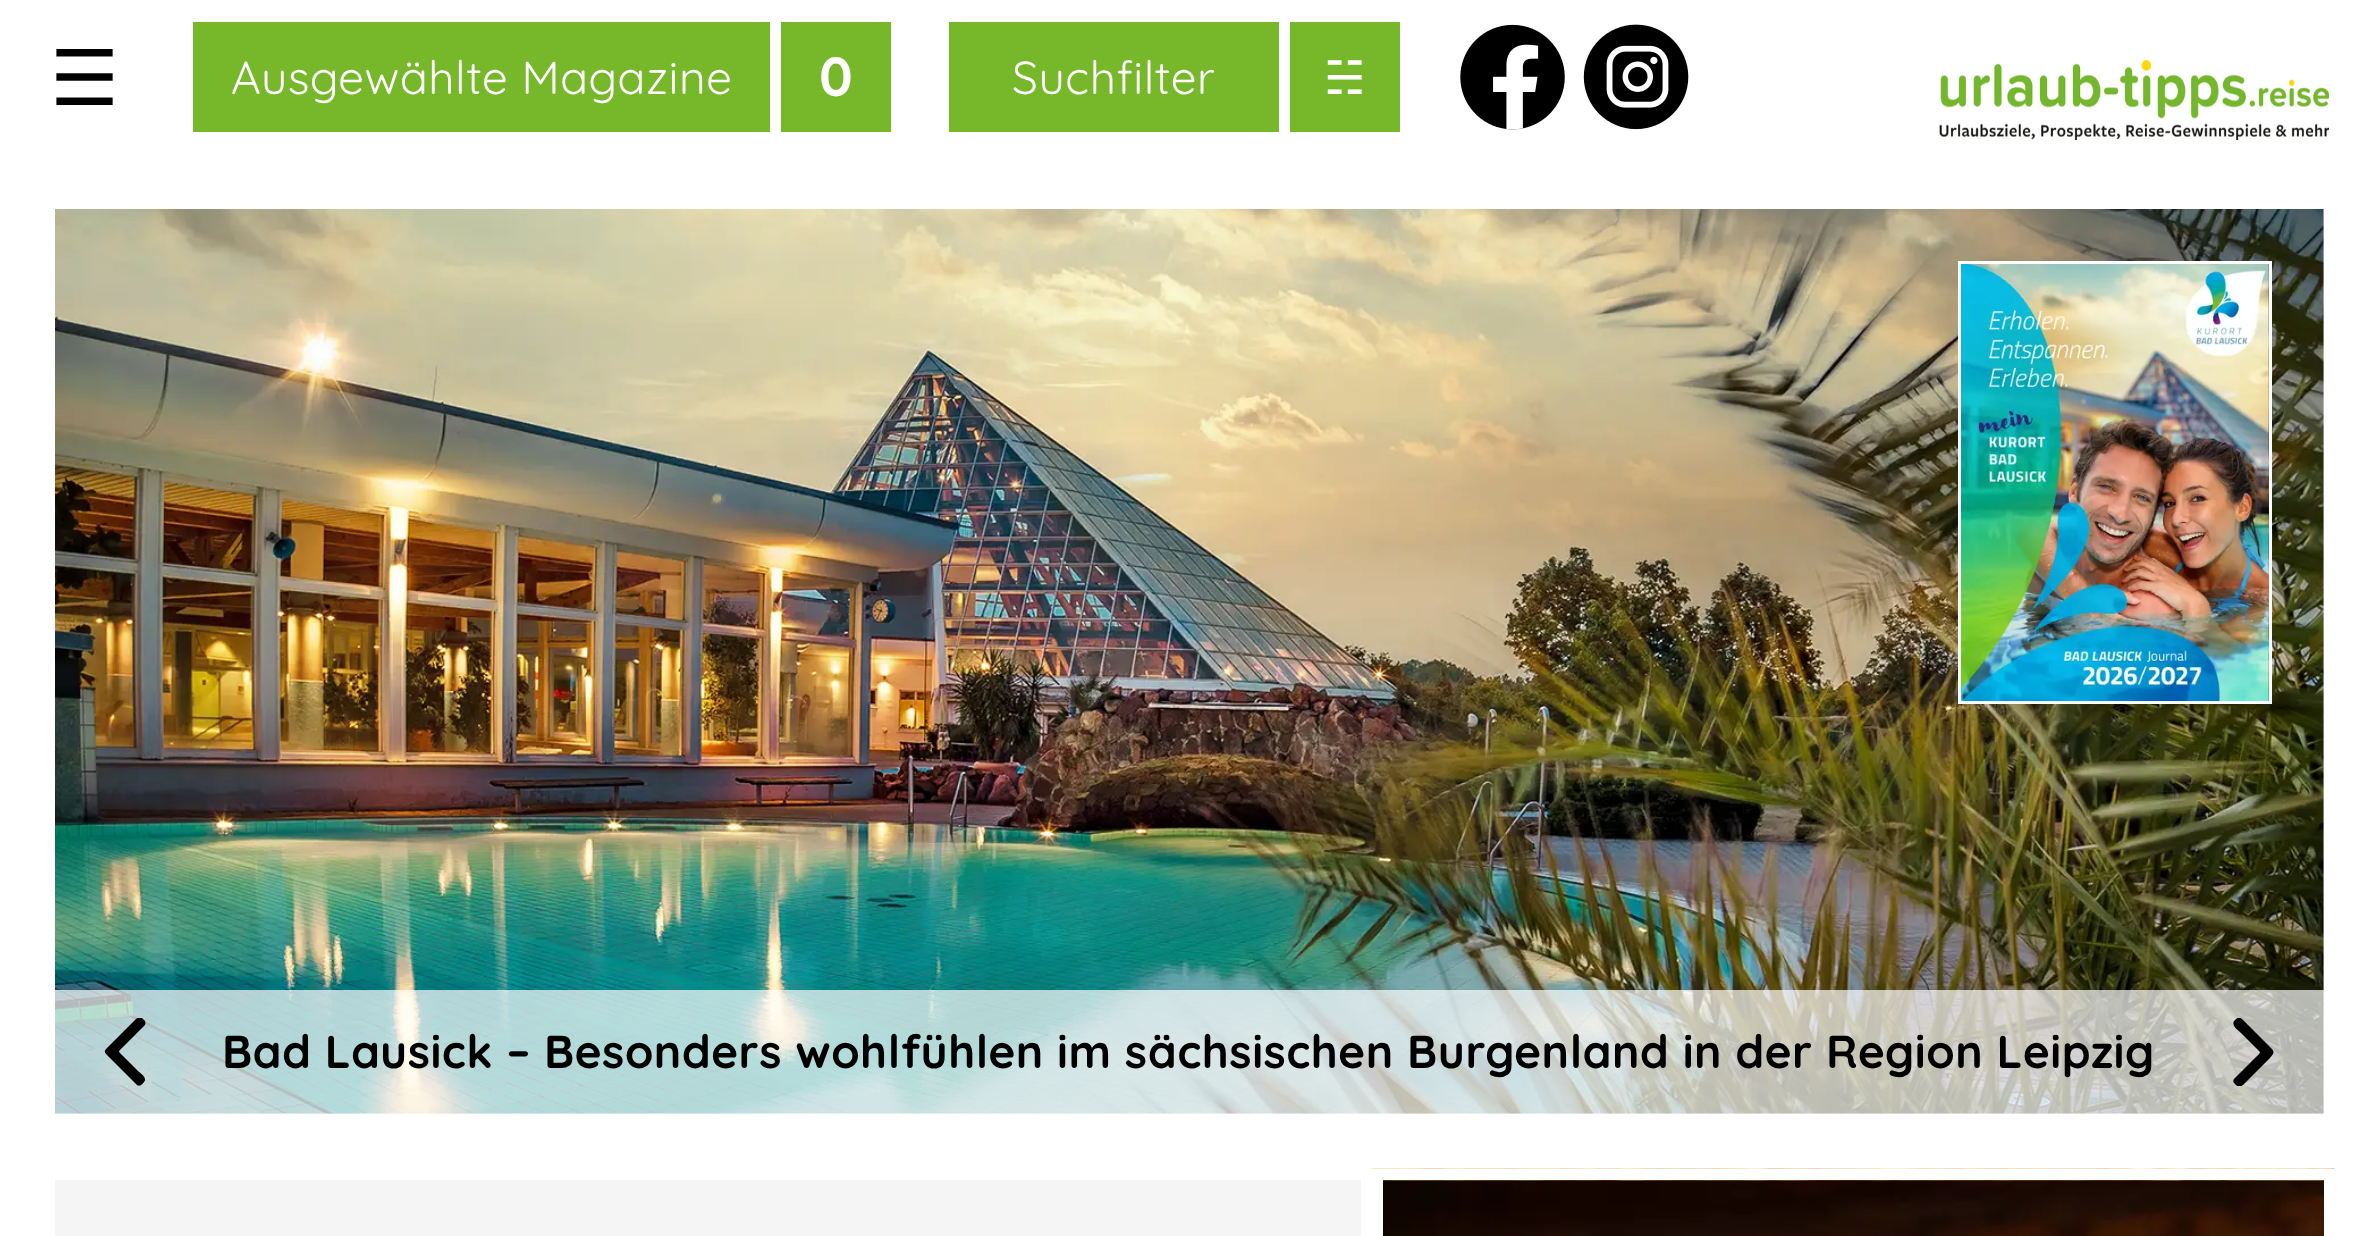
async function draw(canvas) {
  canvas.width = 2378;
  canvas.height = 1236;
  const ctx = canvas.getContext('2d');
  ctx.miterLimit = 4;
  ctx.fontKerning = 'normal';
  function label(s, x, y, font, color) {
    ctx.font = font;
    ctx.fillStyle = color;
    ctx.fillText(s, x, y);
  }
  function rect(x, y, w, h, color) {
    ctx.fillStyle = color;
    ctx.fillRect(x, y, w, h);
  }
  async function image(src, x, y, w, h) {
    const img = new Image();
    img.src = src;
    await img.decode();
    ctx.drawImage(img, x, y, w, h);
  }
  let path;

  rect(0, 0, 2378, 1236, '#fff');
  ctx.letterSpacing = '0.55px';
  label('☰', 50, 105, '77px DejaVu Sans', '#000');
  rect(193, 22, 577, 110, '#76b82a');
  label('Ausgewählte Magazine', 231, 94, '46.2px Quicksand', '#fff');
  rect(781, 22, 110, 110, '#76b82a');
  label('0', 819, 96, 'bold 55px Quicksand', '#fff');
  rect(949, 22, 330, 110, '#76b82a');
  label('Suchfilter', 1012, 94, '46.2px Quicksand', '#fff');
  rect(1290, 22, 110, 110, '#76b82a');
  label('☵', 1324, 94, '46.2px DejaVu Sans', '#fff');
  await image('assets/img1.png', 1460, 24, 105, 106);
  await image('assets/img2.png', 1583, 24, 106, 106);
  await image('assets/img3.png', 1939, 59, 390, 81);
  rect(55, 209, 2269, 905, '#f5f5f5');
  await image('assets/img4.png', 55, 209, 2269, 905);
  await image('assets/img5.png', 1961, 264, 308, 437);
  ctx.strokeStyle = '#fff';
  ctx.lineWidth = 3;
  ctx.strokeRect(1959.5, 262.5, 311, 440);
  rect(55, 990, 2269, 124, '#ffffffb3');
  ctx.save();
  ctx.beginPath();
  ctx.rect(102, 1018, 44, 68);
  ctx.clip();
  ctx.fillStyle = '#000';
  path = new Path2D('M137 1085L110 1058C103 1051 103 1052 110 1045L133 1022C138 1017 140 1015 145 1021C145 1022 146 1023 145 1025L122 1048C118 1052 118 1051 122 1055L138 1071C140 1073 148 1078 144 1082C142 1085 139 1087 137 1085Z');
  ctx.fill(path);
  ctx.restore();
  ctx.wordSpacing = '-0.25px';
  label('Bad Lausick – Besonders wohlfühlen im sächsischen Burgenland in der Region Leipzig', 222, 1068, 'bold 46.2px Quicksand', '#000');
  ctx.save();
  ctx.beginPath();
  ctx.rect(2233, 1018, 44, 68);
  ctx.clip();
  path = new Path2D('M2242 1019L2269 1046C2275 1052 2275 1052 2269 1059L2246 1082C2241 1087 2239 1089 2234 1083C2233 1082 2233 1080 2234 1079L2257 1056C2261 1052 2261 1053 2257 1049L2241 1033C2239 1031 2231 1026 2234 1021C2236 1019 2239 1016 2242 1019Z');
  ctx.fill(path);
  ctx.restore();
  rect(55, 1180, 1306, 56, '#f5f5f5');
  await image('assets/img6.png', 1372, 1168, 963, 68);
  ctx.lineWidth = 11;
  ctx.strokeRect(1377.5, 1174.5, 952, 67);
}

draw(document.querySelector('canvas'));
